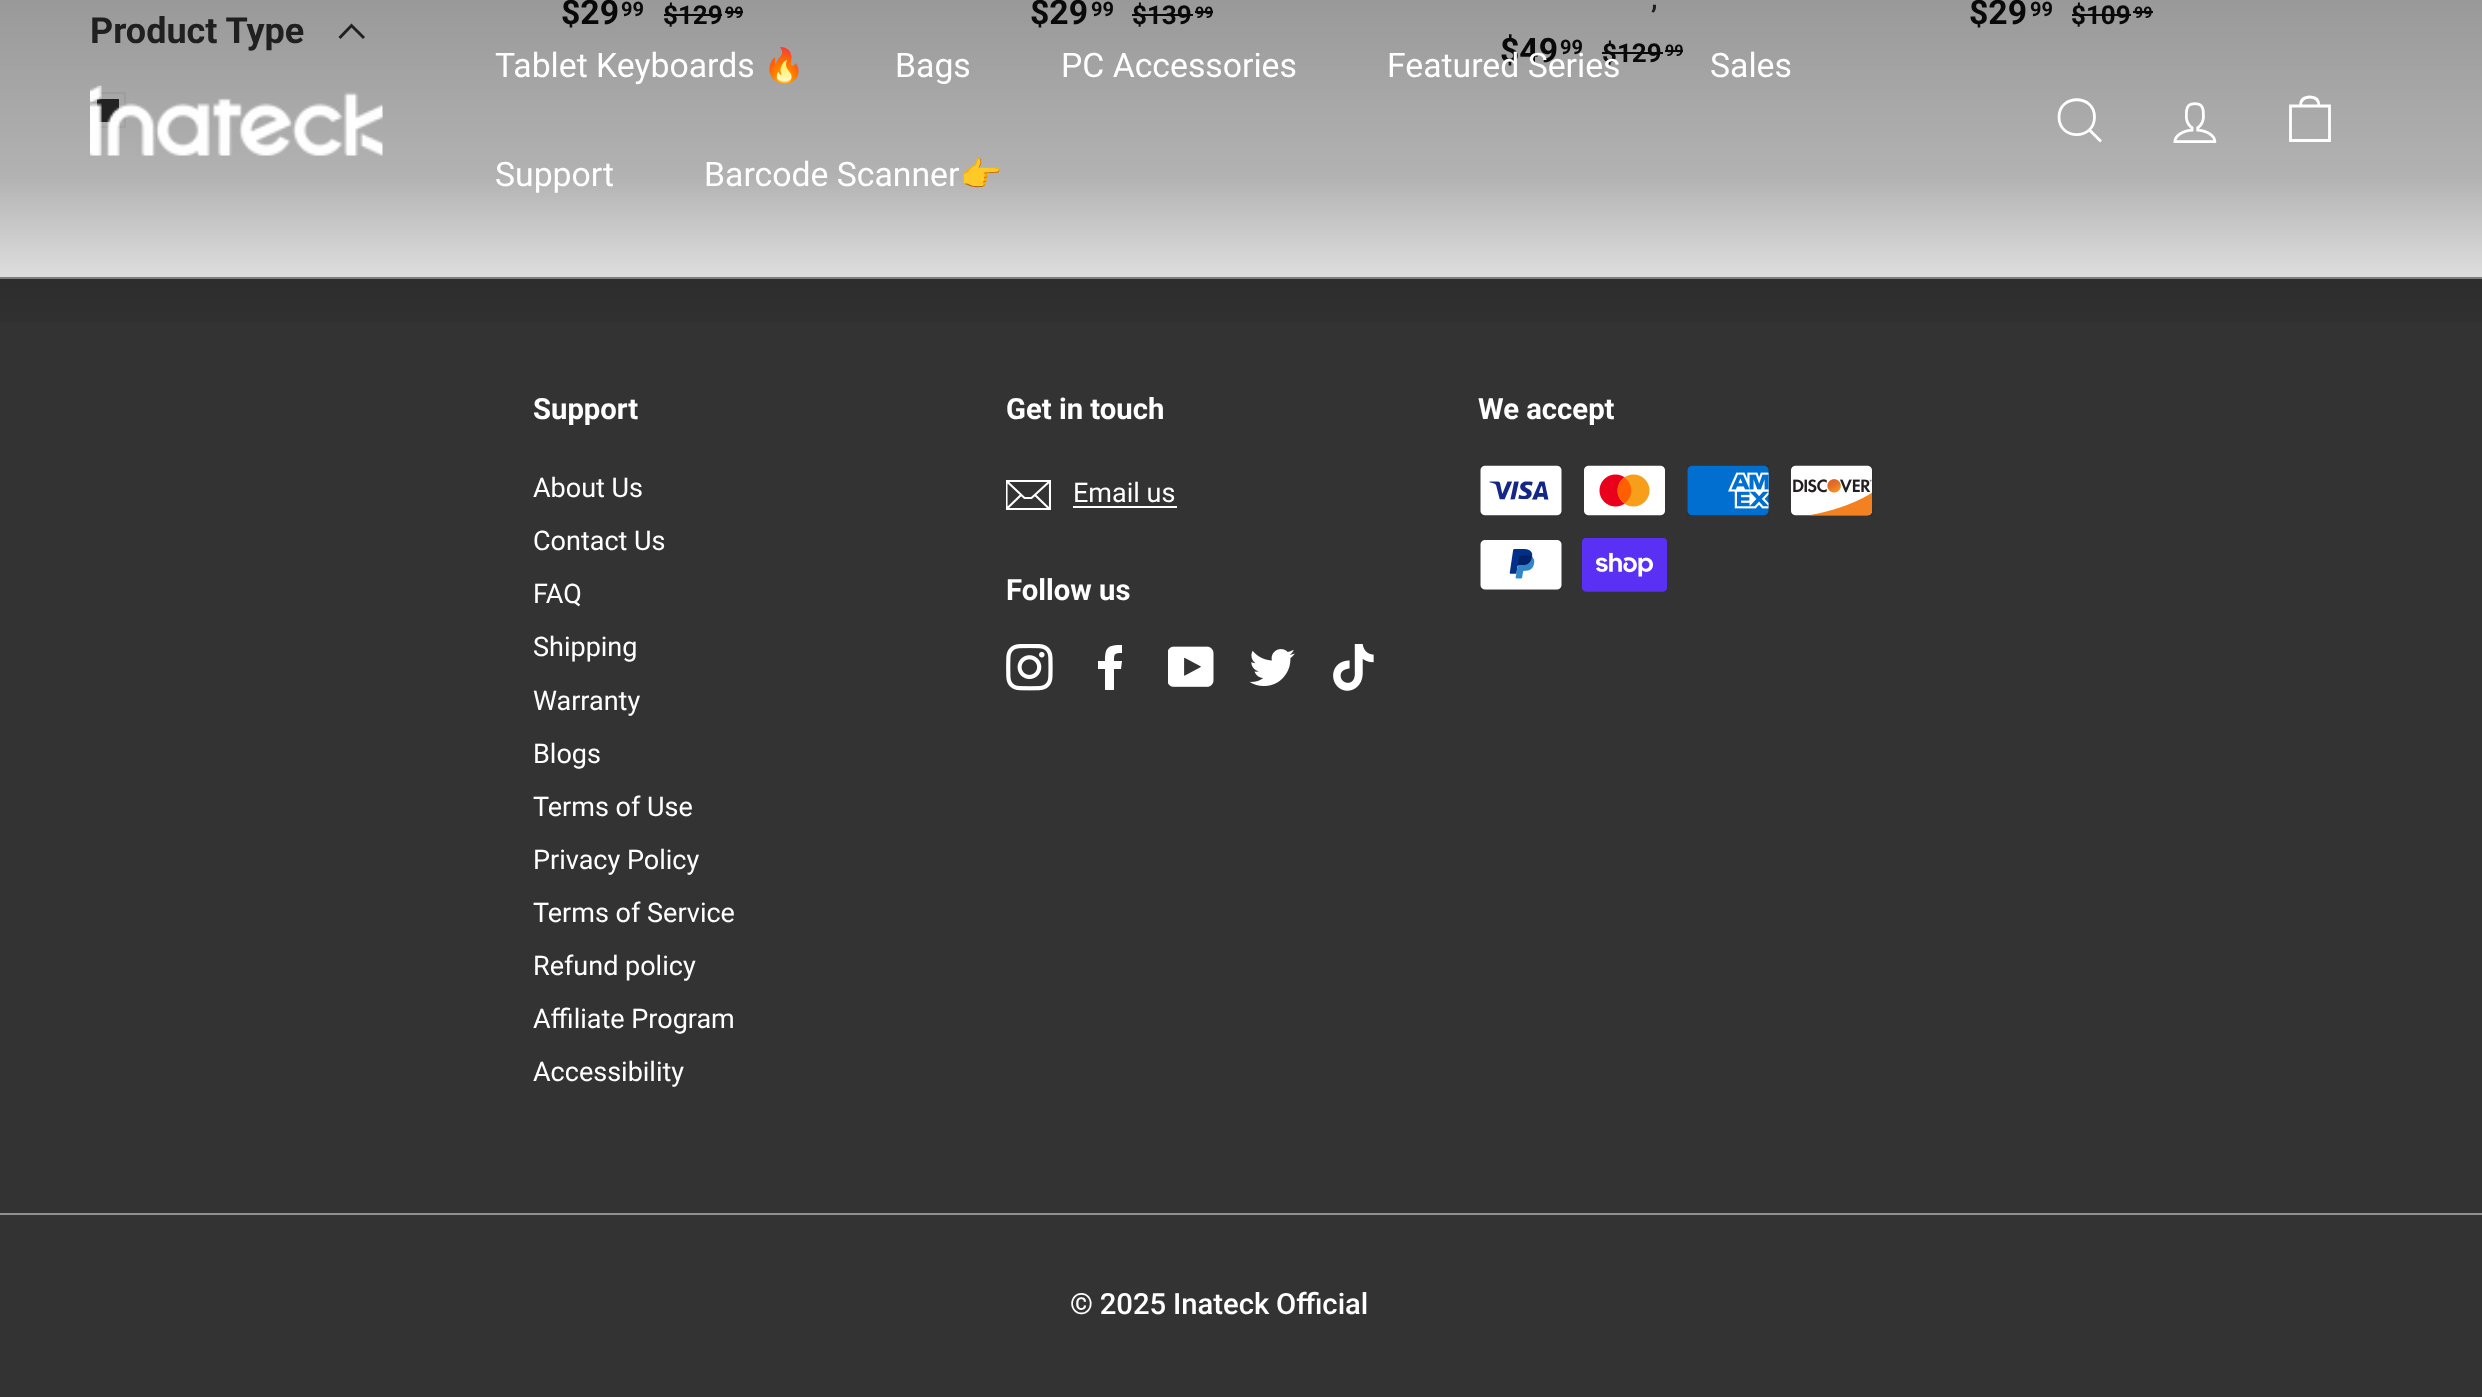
async function draw(canvas) {
  canvas.width = 2482;
  canvas.height = 1397;
  const ctx = canvas.getContext('2d');
  ctx.miterLimit = 4;
  ctx.fontKerning = 'normal';
  function label(s, x, y, font, color) {
    ctx.font = font;
    ctx.fillStyle = color;
    ctx.fillText(s, x, y);
  }
  function rect(x, y, w, h, color) {
    ctx.fillStyle = color;
    ctx.fillRect(x, y, w, h);
  }
  async function image(src, x, y, w, h) {
    const img = new Image();
    img.src = src;
    await img.decode();
    ctx.drawImage(img, x, y, w, h);
  }
  let gradient, path;

  rect(0, 0, 2482, 1397, '#fff');
  label('Product Type', 90, 43, 'bold 36px Roboto', '#333');
  path = new Path2D('M364 38L351.5 25.5L339.5 38');
  ctx.strokeStyle = '#333';
  ctx.lineWidth = 2.9;
  ctx.stroke(path);
  ctx.strokeStyle = '#f2f2f2';
  ctx.lineWidth = 2;
  ctx.strokeRect(91, 93, 34, 34);
  rect(97, 99, 22, 23, '#333');
  label('$29', 561, 24, 'bold 33.75px Roboto', '#0f0f0f');
  label('99', 621, 16, 'bold 20px Roboto', '#0f0f0f');
  label('$129', 663, 24, 'bold 26px Roboto', '#0f0f0f');
  rect(664, 14, 58, 2, '#0f0f0f');
  label('99', 725, 18, 'bold 16px Roboto', '#0f0f0f');
  rect(725, 11, 18, 2, '#0f0f0f');
  label('$29', 1030, 24, 'bold 33.75px Roboto', '#0f0f0f');
  label('99', 1091, 16, 'bold 20px Roboto', '#0f0f0f');
  label('$139', 1132, 24, 'bold 26px Roboto', '#0f0f0f');
  rect(1132, 14, 61, 2, '#0f0f0f');
  label('99', 1195, 18, 'bold 16px Roboto', '#0f0f0f');
  rect(1195, 11, 18, 2, '#0f0f0f');
  ctx.wordSpacing = '-2px';
  label(',', 1651, 8, '500 29.25px Roboto', '#333');
  ctx.wordSpacing = '0px';
  label('$49', 1500, 62, 'bold 33.75px Roboto', '#0f0f0f');
  label('99', 1560, 54, 'bold 20px Roboto', '#0f0f0f');
  label('$129', 1602, 62, 'bold 26px Roboto', '#0f0f0f');
  rect(1602, 52, 61, 2, '#0f0f0f');
  label('99', 1665, 56, 'bold 16px Roboto', '#0f0f0f');
  rect(1665, 50, 18, 2, '#0f0f0f');
  label('$29', 1969, 24, 'bold 33.75px Roboto', '#0f0f0f');
  label('99', 2030, 16, 'bold 20px Roboto', '#0f0f0f');
  label('$109', 2071, 24, 'bold 26px Roboto', '#0f0f0f');
  rect(2072, 14, 59, 2, '#0f0f0f');
  label('99', 2134, 18, 'bold 16px Roboto', '#0f0f0f');
  rect(2133, 11, 20, 2, '#0f0f0f');
  rect(0, 279, 2482, 1118, '#333');
  rect(0, 277, 2482, 2, '#909090');
  gradient = ctx.createLinearGradient(1242, 0, 1242, 353);
  gradient.addColorStop(0, '#00000066');
  gradient.addColorStop(0.5, '#0000004d');
  gradient.addColorStop(1, '#00000000');
  ctx.fillStyle = gradient;
  ctx.fillRect(0, 0, 2482, 322);
  await image('assets/img1.png', 90, 85, 293, 71);
  label('Tablet Keyboards', 495, 77, '33.75px Roboto', '#fff');
  label('🔥', 763, 77, '33.75px Noto Color Emoji', '#fff');
  label('Bags', 895, 77, '33.75px Roboto', '#fff');
  label('PC Accessories', 1061, 77, '33.75px Roboto', '#fff');
  label('Featured Series', 1387, 77, '33.75px Roboto', '#fff');
  label('Sales', 1710, 77, '33.75px Roboto', '#fff');
  label('Support', 495, 186, '33.75px Roboto', '#fff');
  label('Barcode Scanner', 704, 186, '33.75px Roboto', '#fff');
  label('👉', 960, 186, '33.75px Noto Color Emoji', '#fff');
  path = new Path2D('M2094.5 117C2094.5 140.5 2059 140.5 2059 117C2059 94 2094.5 94 2094.5 117ZM2101 141.5L2089.5 130');
  ctx.strokeStyle = '#fff';
  ctx.lineWidth = 2.8;
  ctx.stroke(path);
  await image('assets/img2.png', 2173, 102, 44, 41);
  path = new Path2D('M2300.5 106C2300.5 99 2305 97 2310 97C2315 97 2319 99 2319 106M2290.5 106H2329.5V140.5H2290.5Z');
  ctx.stroke(path);
  label('Support', 533, 419, 'bold 29.25px Roboto', '#fff');
  label('About Us', 533, 497, '27px Roboto', '#fff');
  label('Contact Us', 533, 550, '27px Roboto', '#fff');
  label('FAQ', 533, 603, '27px Roboto', '#fff');
  label('Shipping', 533, 656, '27px Roboto', '#fff');
  label('Warranty', 533, 710, '27px Roboto', '#fff');
  label('Blogs', 533, 763, '27px Roboto', '#fff');
  label('Terms of Use', 533, 816, '27px Roboto', '#fff');
  label('Privacy Policy', 533, 869, '27px Roboto', '#fff');
  label('Terms of Service', 533, 922, '27px Roboto', '#fff');
  label('Refund policy', 533, 975, '27px Roboto', '#fff');
  label('Affiliate Program', 533, 1028, '27px Roboto', '#fff');
  label('Accessibility', 533, 1081, '27px Roboto', '#fff');
  label('Get in touch', 1006, 419, 'bold 29.25px Roboto', '#fff');
  ctx.save();
  ctx.beginPath();
  ctx.rect(1006, 473, 45, 45);
  ctx.clip();
  path = new Path2D('M1050 509H1006.5V481H1050ZM1006.5 481L1024.5 498H1031.5L1050 481M1021 495L1007 508.5M1049.5 509L1035 495');
  ctx.lineWidth = 2.1;
  ctx.stroke(path);
  ctx.restore();
  label('Email us', 1073, 502, '27px Roboto', '#fff');
  rect(1073, 506, 104, 2, '#fff');
  label('Follow us', 1006, 600, 'bold 29.25px Roboto', '#fff');
  await image('assets/img3.png', 1006, 644, 47, 47);
  path = new Path2D('M1114 690V669H1121L1122 661H1114C1114 654 1114 653 1122 653V645C1108 645 1105 647 1105 661H1098V669H1105V690Z');
  ctx.fill(path);
  await image('assets/img4.png', 1168, 646, 46, 41);
  await image('assets/img5.png', 1249, 649, 46, 37);
  await image('assets/img6.png', 1333, 644, 41, 47);
  label('We accept', 1478, 419, 'bold 29.25px Roboto', '#fff');
  await image('assets/img7.png', 1480, 465, 82, 51);
  await image('assets/img8.png', 1584, 465, 81, 51);
  await image('assets/img9.png', 1687, 465, 82, 51);
  await image('assets/img10.png', 1791, 465, 82, 51);
  await image('assets/img11.png', 1480, 540, 82, 50);
  await image('assets/img12.png', 1582, 538, 85, 54);
  rect(0, 1213, 2482, 2, '#909090');
  ctx.wordSpacing = '-0.5px';
  label('© 2025 Inateck Official', 1070, 1314, '500 29.25px Roboto', '#fff');
}

draw(document.querySelector('canvas'));
